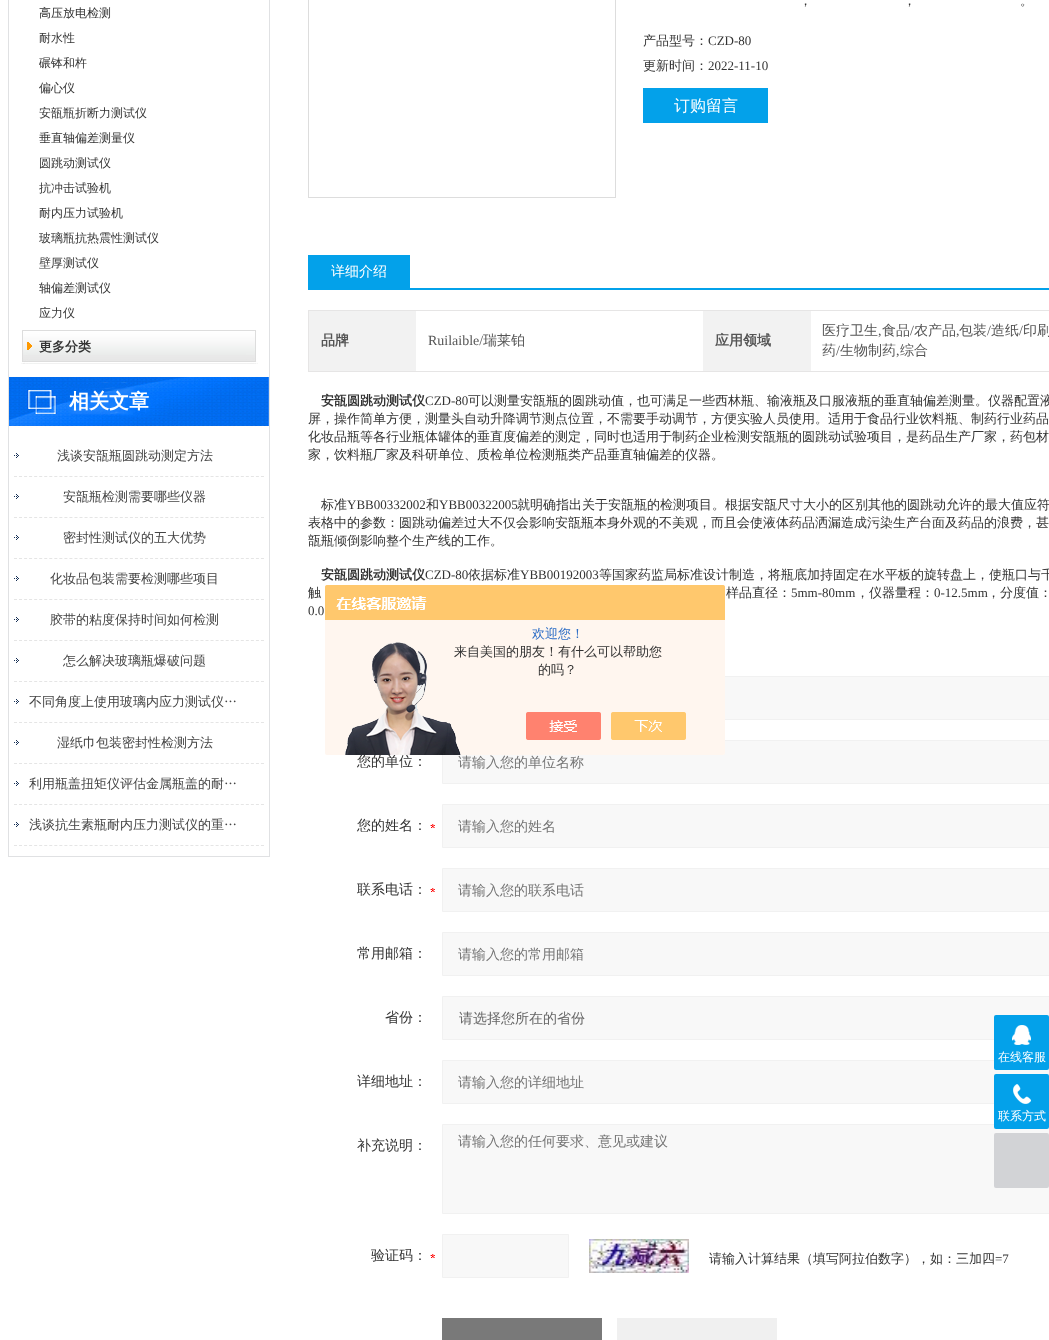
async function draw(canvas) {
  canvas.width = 1049;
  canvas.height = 1340;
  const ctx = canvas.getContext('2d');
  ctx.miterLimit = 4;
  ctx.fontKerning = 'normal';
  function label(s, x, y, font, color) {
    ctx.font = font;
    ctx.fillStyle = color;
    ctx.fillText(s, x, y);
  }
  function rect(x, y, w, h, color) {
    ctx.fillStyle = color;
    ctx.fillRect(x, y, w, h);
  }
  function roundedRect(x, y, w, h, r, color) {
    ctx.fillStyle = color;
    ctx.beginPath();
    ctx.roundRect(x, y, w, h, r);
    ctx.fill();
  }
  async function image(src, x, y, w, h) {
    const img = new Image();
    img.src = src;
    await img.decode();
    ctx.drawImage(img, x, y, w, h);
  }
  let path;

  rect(0, 0, 1049, 1340, '#fff');
  ctx.strokeStyle = '#e0e1e3';
  ctx.strokeRect(8.5, -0.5, 261, 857);
  label('高压放电检测', 39, 17, '500 12px WenQuanYi Zen Hei', '#333');
  label('耐水性', 39, 42, '500 12px WenQuanYi Zen Hei', '#333');
  label('碾钵和杵', 39, 67, '500 12px WenQuanYi Zen Hei', '#333');
  label('偏心仪', 39, 92, '500 12px WenQuanYi Zen Hei', '#333');
  label('安瓿瓶折断力测试仪', 39, 117, '500 12px WenQuanYi Zen Hei', '#333');
  label('垂直轴偏差测量仪', 39, 142, '500 12px WenQuanYi Zen Hei', '#333');
  label('圆跳动测试仪', 39, 167, '500 12px WenQuanYi Zen Hei', '#333');
  label('抗冲击试验机', 39, 192, '500 12px WenQuanYi Zen Hei', '#333');
  label('耐内压力试验机', 39, 217, '500 12px WenQuanYi Zen Hei', '#333');
  label('玻璃瓶抗热震性测试仪', 39, 242, '500 12px WenQuanYi Zen Hei', '#333');
  label('壁厚测试仪', 39, 267, '500 12px WenQuanYi Zen Hei', '#333');
  label('轴偏差测试仪', 39, 292, '500 12px WenQuanYi Zen Hei', '#333');
  label('应力仪', 39, 317, '500 12px WenQuanYi Zen Hei', '#333');
  await image('assets/img1.png', 21, 330, 237, 34);
  label('更多分类', 39, 351, 'bold 13px WenQuanYi Zen Hei', '#333');
  await image('assets/img2.png', 9, 376, 260, 52);
  label('相关文章', 69, 408, 'bold 20px WenQuanYi Zen Hei', '#fff');
  await image('assets/img3.png', 14, 453, 5, 5);
  path = new Path2D('M14 476.5H264');
  ctx.strokeStyle = '#e5e5e5';
  ctx.setLineDash([3, 2.04]);
  ctx.stroke(path);
  label('浅谈安瓿瓶圆跳动测定方法', 57, 460, '500 13px WenQuanYi Zen Hei', '#444');
  await image('assets/img3.png', 14, 494, 5, 5);
  path = new Path2D('M14 517.5H264');
  ctx.stroke(path);
  label('安瓿瓶检测需要哪些仪器', 63, 501, '500 13px WenQuanYi Zen Hei', '#444');
  await image('assets/img3.png', 14, 535, 5, 5);
  path = new Path2D('M14 558.5H264');
  ctx.stroke(path);
  label('密封性测试仪的五大优势', 63, 542, '500 13px WenQuanYi Zen Hei', '#444');
  await image('assets/img3.png', 14, 576, 5, 5);
  path = new Path2D('M14 599.5H264');
  ctx.stroke(path);
  label('化妆品包装需要检测哪些项目', 50, 583, '500 13px WenQuanYi Zen Hei', '#444');
  await image('assets/img3.png', 14, 617, 5, 5);
  path = new Path2D('M14 640.5H264');
  ctx.stroke(path);
  label('胶带的粘度保持时间如何检测', 50, 624, '500 13px WenQuanYi Zen Hei', '#444');
  await image('assets/img3.png', 14, 658, 5, 5);
  path = new Path2D('M14 681.5H264');
  ctx.stroke(path);
  label('怎么解决玻璃瓶爆破问题', 63, 665, '500 13px WenQuanYi Zen Hei', '#444');
  await image('assets/img3.png', 14, 699, 5, 5);
  path = new Path2D('M14 722.5H264');
  ctx.stroke(path);
  label('不同角度上使用玻璃内应力测试仪…', 29, 706, '500 13px WenQuanYi Zen Hei', '#444');
  await image('assets/img3.png', 14, 740, 5, 5);
  path = new Path2D('M14 763.5H264');
  ctx.stroke(path);
  label('湿纸巾包装密封性检测方法', 57, 747, '500 13px WenQuanYi Zen Hei', '#444');
  await image('assets/img3.png', 14, 781, 5, 5);
  path = new Path2D('M14 804.5H264');
  ctx.stroke(path);
  label('利用瓶盖扭矩仪评估金属瓶盖的耐…', 29, 788, '500 13px WenQuanYi Zen Hei', '#444');
  await image('assets/img3.png', 14, 822, 5, 5);
  path = new Path2D('M14 845.5H264');
  ctx.stroke(path);
  label('浅谈抗生素瓶耐内压力测试仪的重…', 29, 829, '500 13px WenQuanYi Zen Hei', '#444');
  ctx.strokeStyle = '#ddd';
  ctx.setLineDash([]);
  ctx.strokeRect(308.5, -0.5, 307, 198);
  label('，', 799, 5, '500 13px WenQuanYi Zen Hei', '#333');
  label('，', 903, 5, '500 13px WenQuanYi Zen Hei', '#333');
  label('。', 1020, 5, '500 13px WenQuanYi Zen Hei', '#333');
  label('产品型号：', 643, 45, '500 13px WenQuanYi Zen Hei', '#333');
  label('CZD-80', 708, 45, '13px Liberation Serif', '#333');
  label('更新时间：', 643, 70, '500 13px WenQuanYi Zen Hei', '#333');
  label('2022-11-10', 708, 70, '13px Liberation Serif', '#333');
  rect(643, 88, 125, 35, '#03a1ea');
  label('订购留言', 674, 111, '500 16px WenQuanYi Zen Hei', '#fff');
  rect(308, 288, 741, 2, '#03a1ea');
  rect(308, 255, 102, 33, '#03a1ea');
  label('详细介绍', 331, 276, '500 14px WenQuanYi Zen Hei', '#fff');
  rect(308, 310, 741, 1, '#e6e5e5');
  rect(308, 310, 1, 62, '#e6e5e5');
  rect(309, 311, 107, 60, '#f2f2f2');
  label('品牌', 321, 345, 'bold 14px WenQuanYi Zen Hei', '#555');
  label('Ruilaible/', 428, 345, '14px Liberation Serif', '#555');
  label('瑞莱铂', 483, 345, '500 14px WenQuanYi Zen Hei', '#555');
  rect(703, 311, 108, 60, '#f2f2f2');
  label('应用领域', 715, 345, 'bold 14px WenQuanYi Zen Hei', '#555');
  rect(308, 371, 741, 1, '#e6e5e5');
  label('医疗卫生', 822, 335, '500 14px WenQuanYi Zen Hei', '#555');
  label(',', 878, 335, '14px Liberation Serif', '#555');
  label('食品', 882, 335, '500 14px WenQuanYi Zen Hei', '#555');
  label('/', 910, 335, '14px Liberation Serif', '#555');
  label('农产品', 914, 335, '500 14px WenQuanYi Zen Hei', '#555');
  label(',', 956, 335, '14px Liberation Serif', '#555');
  label('包装', 959, 335, '500 14px WenQuanYi Zen Hei', '#555');
  label('/', 987, 335, '14px Liberation Serif', '#555');
  label('造纸', 991, 335, '500 14px WenQuanYi Zen Hei', '#555');
  label('/', 1019, 335, '14px Liberation Serif', '#555');
  label('印刷', 1023, 335, '500 14px WenQuanYi Zen Hei', '#555');
  label('药', 822, 355, '500 14px WenQuanYi Zen Hei', '#555');
  label('/', 836, 355, '14px Liberation Serif', '#555');
  label('生物制药', 840, 355, '500 14px WenQuanYi Zen Hei', '#555');
  label(',', 896, 355, '14px Liberation Serif', '#555');
  label('综合', 900, 355, '500 14px WenQuanYi Zen Hei', '#555');
  label('安瓿圆跳动测试仪', 321, 405, 'bold 13px WenQuanYi Zen Hei', '#333');
  label('CZD-80', 425, 405, '13px Liberation Serif', '#333');
  label('可以测量安瓿瓶的圆跳动值，也可满足一些西林瓶、输液瓶及口服液瓶的垂直轴偏差测量。仪器配置液', 468, 405, '500 13px WenQuanYi Zen Hei', '#333');
  label('屏，操作简单方便，测量头自动升降调节测点位置，不需要手动调节，方便实验人员使用。适用于食品行业饮料瓶、制药行业药品', 308, 423, '500 13px WenQuanYi Zen Hei', '#333');
  label('化妆品瓶等各行业瓶体罐体的垂直度偏差的测定，同时也适用于制药企业检测安瓿瓶的圆跳动试验项目，是药品生产厂家，药包材', 308, 441, '500 13px WenQuanYi Zen Hei', '#333');
  label('家，饮料瓶厂家及科研单位、质检单位检测瓶类产品垂直轴偏差的仪器。', 308, 459, '500 13px WenQuanYi Zen Hei', '#333');
  label('标准', 321, 509, '500 13px WenQuanYi Zen Hei', '#333');
  label('YBB00332002', 347, 509, '13px Liberation Serif', '#333');
  label('和', 426, 509, '500 13px WenQuanYi Zen Hei', '#333');
  label('YBB00322005', 439, 509, '13px Liberation Serif', '#333');
  label('就明确指出关于安瓿瓶的检测项目。根据安瓿尺寸大小的区别其他的圆跳动允许的最大值应符', 517, 509, '500 13px WenQuanYi Zen Hei', '#333');
  label('表格中的参数：圆跳动偏差过大不仅会影响安瓿瓶本身外观的不美观，而且会使液体药品洒漏造成污染生产台面及药品的浪费，甚', 308, 527, '500 13px WenQuanYi Zen Hei', '#333');
  label('瓿瓶倾倒影响整个生产线的工作。', 308, 545, '500 13px WenQuanYi Zen Hei', '#333');
  label('安瓿圆跳动测试仪', 321, 579, 'bold 13px WenQuanYi Zen Hei', '#333');
  label('CZD-80', 425, 579, '13px Liberation Serif', '#333');
  label('依据标准', 468, 579, '500 13px WenQuanYi Zen Hei', '#333');
  label('YBB00192003', 520, 579, '13px Liberation Serif', '#333');
  label('等国家药监局标准设计制造，将瓶底加持固定在水平板的旋转盘上，使瓶口与千', 599, 579, '500 13px WenQuanYi Zen Hei', '#333');
  label('触', 308, 597, '500 13px WenQuanYi Zen Hei', '#333');
  label('样品直径：', 726, 597, '500 13px WenQuanYi Zen Hei', '#333');
  label('5mm-80mm', 791, 597, '13px Liberation Serif', '#333');
  label('，仪器量程：', 856, 597, '500 13px WenQuanYi Zen Hei', '#333');
  label('0-12.5mm', 934, 597, '13px Liberation Serif', '#333');
  label('，分度值：', 987, 597, '500 13px WenQuanYi Zen Hei', '#333');
  label('0.0', 308, 615, '13px Liberation Serif', '#333');
  rect(725, 677, 324, 42, '#f8f8f8');
  ctx.strokeStyle = '#f1f1f1';
  ctx.strokeRect(442.5, 676.5, 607, 43);
  label('您的单位：', 357, 766, '500 14px WenQuanYi Zen Hei', '#333');
  ctx.fillStyle = '#f8f8f8';
  ctx.beginPath();
  ctx.rect(442.5, 740.5, 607, 43);
  ctx.fill();
  ctx.stroke();
  label('请输入您的单位名称', 458, 767, '500 14px WenQuanYi Zen Hei', '#757575');
  await image('assets/img4.png', 430, 824, 5, 4);
  label('您的姓名：', 357, 830, '500 14px WenQuanYi Zen Hei', '#333');
  ctx.fillStyle = '#f8f8f8';
  ctx.beginPath();
  ctx.rect(442.5, 804.5, 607, 43);
  ctx.fill();
  ctx.stroke();
  label('请输入您的姓名', 458, 831, '500 14px WenQuanYi Zen Hei', '#757575');
  await image('assets/img4.png', 430, 888, 5, 4);
  label('联系电话：', 357, 894, '500 14px WenQuanYi Zen Hei', '#333');
  ctx.fillStyle = '#f8f8f8';
  ctx.beginPath();
  ctx.rect(442.5, 868.5, 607, 43);
  ctx.fill();
  ctx.stroke();
  label('请输入您的联系电话', 458, 895, '500 14px WenQuanYi Zen Hei', '#757575');
  label('常用邮箱：', 357, 958, '500 14px WenQuanYi Zen Hei', '#333');
  ctx.fillStyle = '#f8f8f8';
  ctx.beginPath();
  ctx.rect(442.5, 932.5, 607, 43);
  ctx.fill();
  ctx.stroke();
  label('请输入您的常用邮箱', 458, 959, '500 14px WenQuanYi Zen Hei', '#757575');
  label('省份：', 385, 1022, '500 14px WenQuanYi Zen Hei', '#333');
  ctx.fillStyle = '#f8f8f8';
  ctx.beginPath();
  ctx.rect(442.5, 996.5, 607, 43);
  ctx.fill();
  ctx.stroke();
  label('请选择您所在的省份', 459, 1023, '500 14px WenQuanYi Zen Hei', '#666');
  label('详细地址：', 357, 1086, '500 14px WenQuanYi Zen Hei', '#333');
  ctx.fillStyle = '#f8f8f8';
  ctx.beginPath();
  ctx.rect(442.5, 1060.5, 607, 43);
  ctx.fill();
  ctx.stroke();
  label('请输入您的详细地址', 458, 1087, '500 14px WenQuanYi Zen Hei', '#757575');
  label('补充说明：', 357, 1150, '500 14px WenQuanYi Zen Hei', '#333');
  ctx.fillStyle = '#f8f8f8';
  ctx.beginPath();
  ctx.rect(442.5, 1124.5, 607, 89);
  ctx.fill();
  ctx.stroke();
  label('请输入您的任何要求、意见或建议', 458, 1146, '500 14px WenQuanYi Zen Hei', '#757575');
  await image('assets/img4.png', 430, 1254, 5, 4);
  label('验证码：', 371, 1260, '500 14px WenQuanYi Zen Hei', '#333');
  ctx.fillStyle = '#f8f8f8';
  ctx.beginPath();
  ctx.rect(442.5, 1234.5, 126, 43);
  ctx.fill();
  ctx.stroke();
  await image('assets/img5.png', 589, 1239, 100, 34);
  label('请输入计算结果（填写阿拉伯数字），如：三加四', 709, 1263, '500 13px WenQuanYi Zen Hei', '#333');
  label('=7', 995, 1263, '13px Liberation Serif', '#333');
  rect(442, 1318, 160, 22, '#797979');
  rect(617, 1318, 160, 22, '#f0f0f0');
  await image('assets/img6.png', 325, 585, 400, 170);
  label('欢迎您！', 532, 638, '500 13px WenQuanYi Zen Hei', '#2e6ec6');
  label('来自美国的朋友！有什么可以帮助您', 454, 656, '500 13px WenQuanYi Zen Hei', '#333');
  label('的吗？', 538, 674, '500 13px WenQuanYi Zen Hei', '#333');
  roundedRect(994, 1015, 55, 55, 2, '#03a1ea');
  await image('assets/img7.png', 1012, 1025, 19, 20);
  label('在线客服', 998, 1061, '500 12px WenQuanYi Zen Hei', '#fff');
  roundedRect(994, 1074, 55, 55, 2, '#03a1ea');
  await image('assets/img8.png', 1013, 1084, 18, 20);
  label('联系方式', 998, 1120, '500 12px WenQuanYi Zen Hei', '#fff');
  roundedRect(994, 1133, 55, 55, 2, '#d2d3d6');
}

draw(document.querySelector('canvas'));
